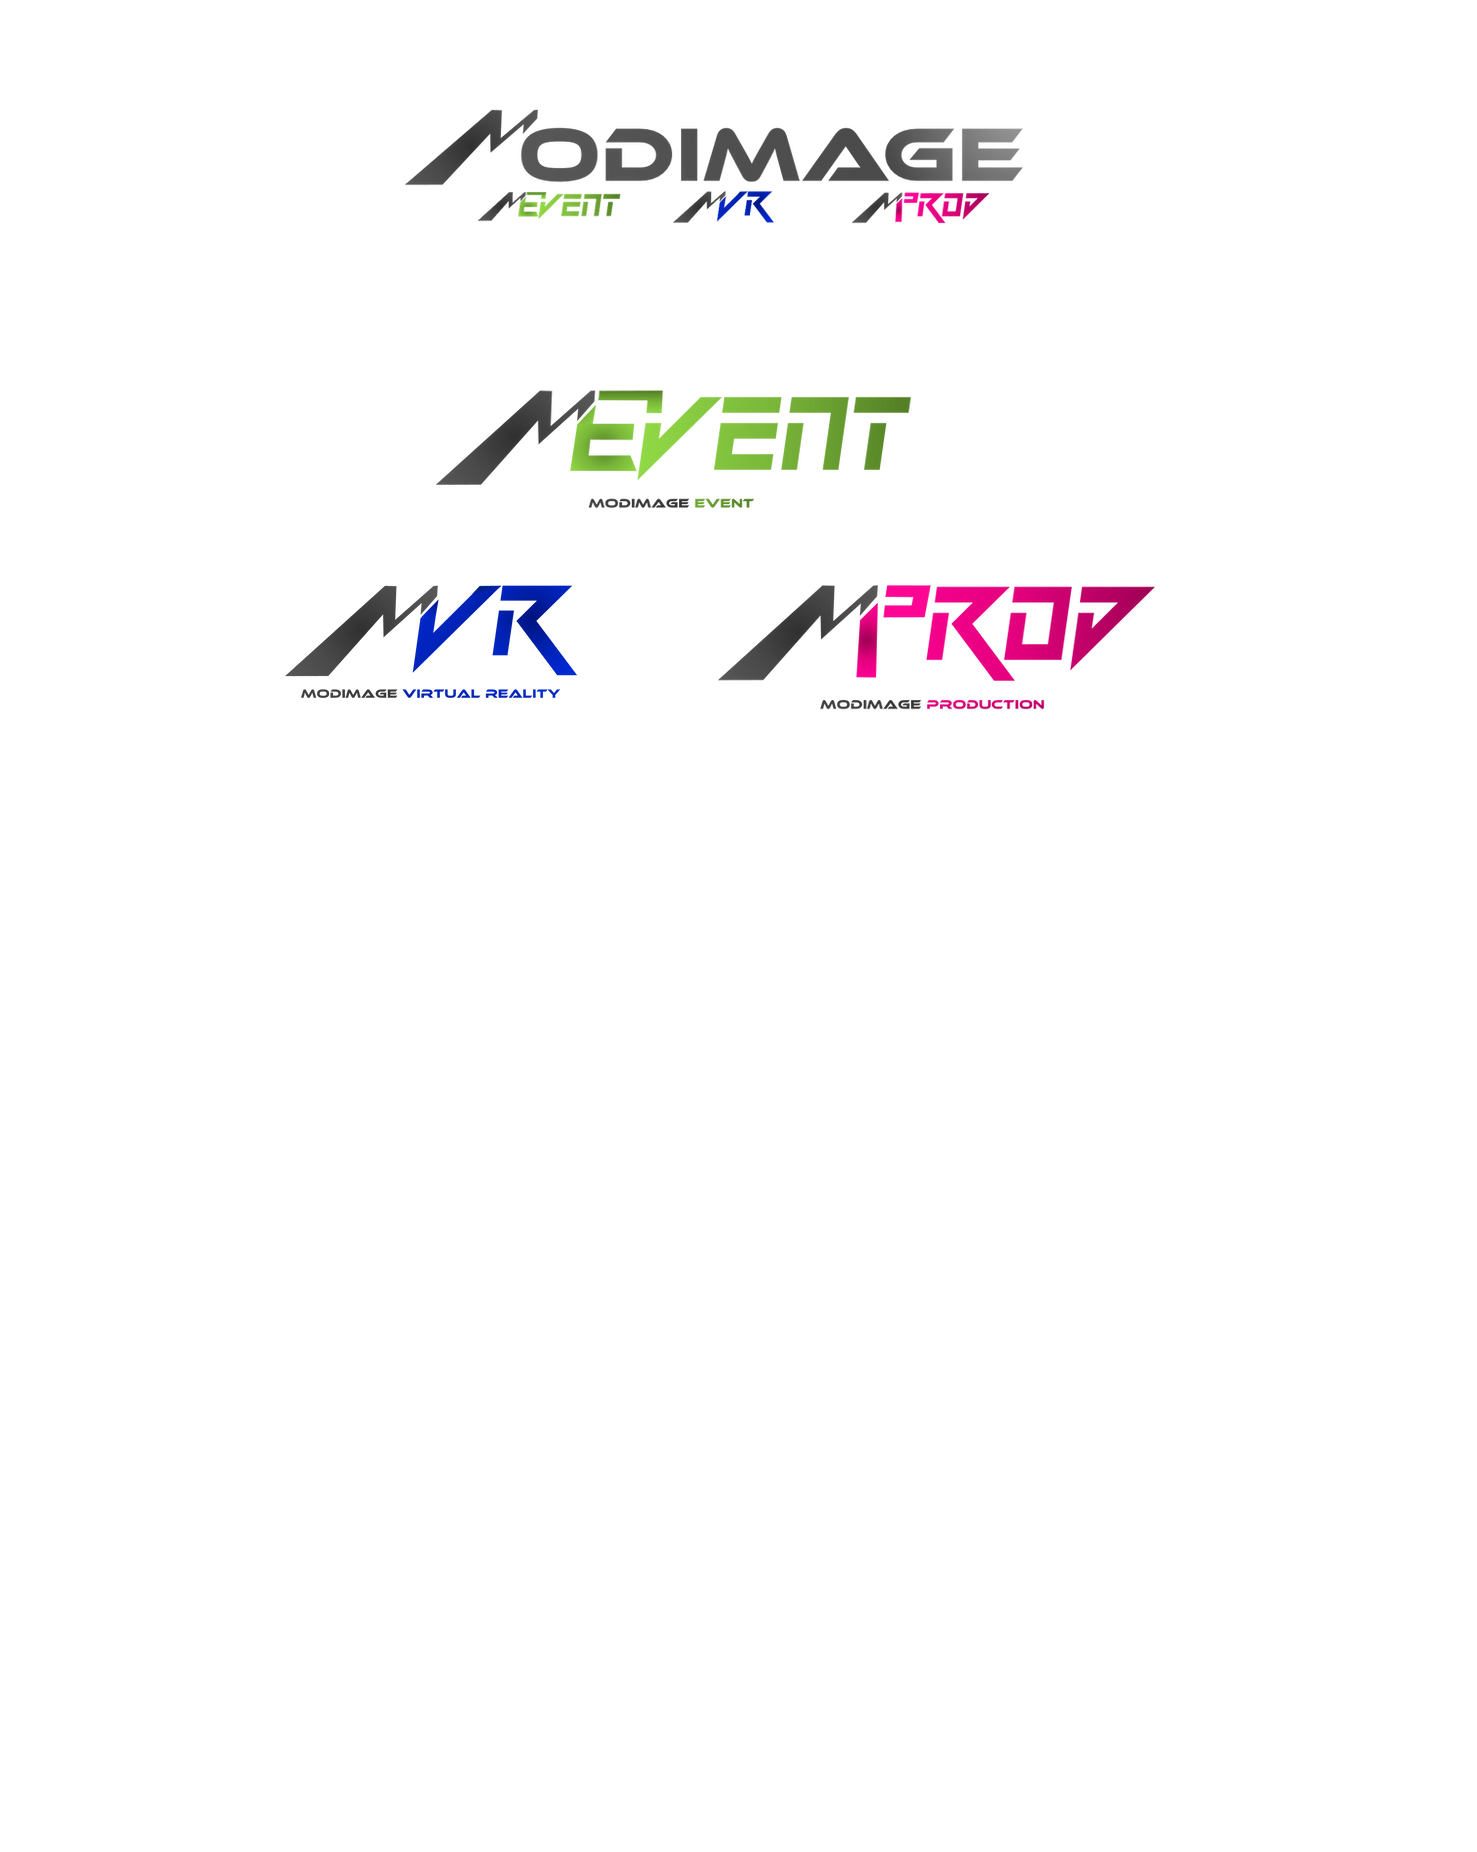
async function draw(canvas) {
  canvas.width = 1477;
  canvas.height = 1852;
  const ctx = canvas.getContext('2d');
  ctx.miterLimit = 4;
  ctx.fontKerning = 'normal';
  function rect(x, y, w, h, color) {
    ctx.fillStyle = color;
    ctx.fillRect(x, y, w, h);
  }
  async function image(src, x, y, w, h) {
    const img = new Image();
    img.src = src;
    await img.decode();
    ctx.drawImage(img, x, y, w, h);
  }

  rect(0, 0, 1477, 1852, '#fff');
  await image('assets/img1.png', 405, 109, 618, 115);
  await image('assets/img2.png', 436, 390, 476, 119);
  await image('assets/img3.png', 285, 585, 292, 113);
  await image('assets/img4.png', 718, 584, 437, 126);
}

draw(document.querySelector('canvas'));
